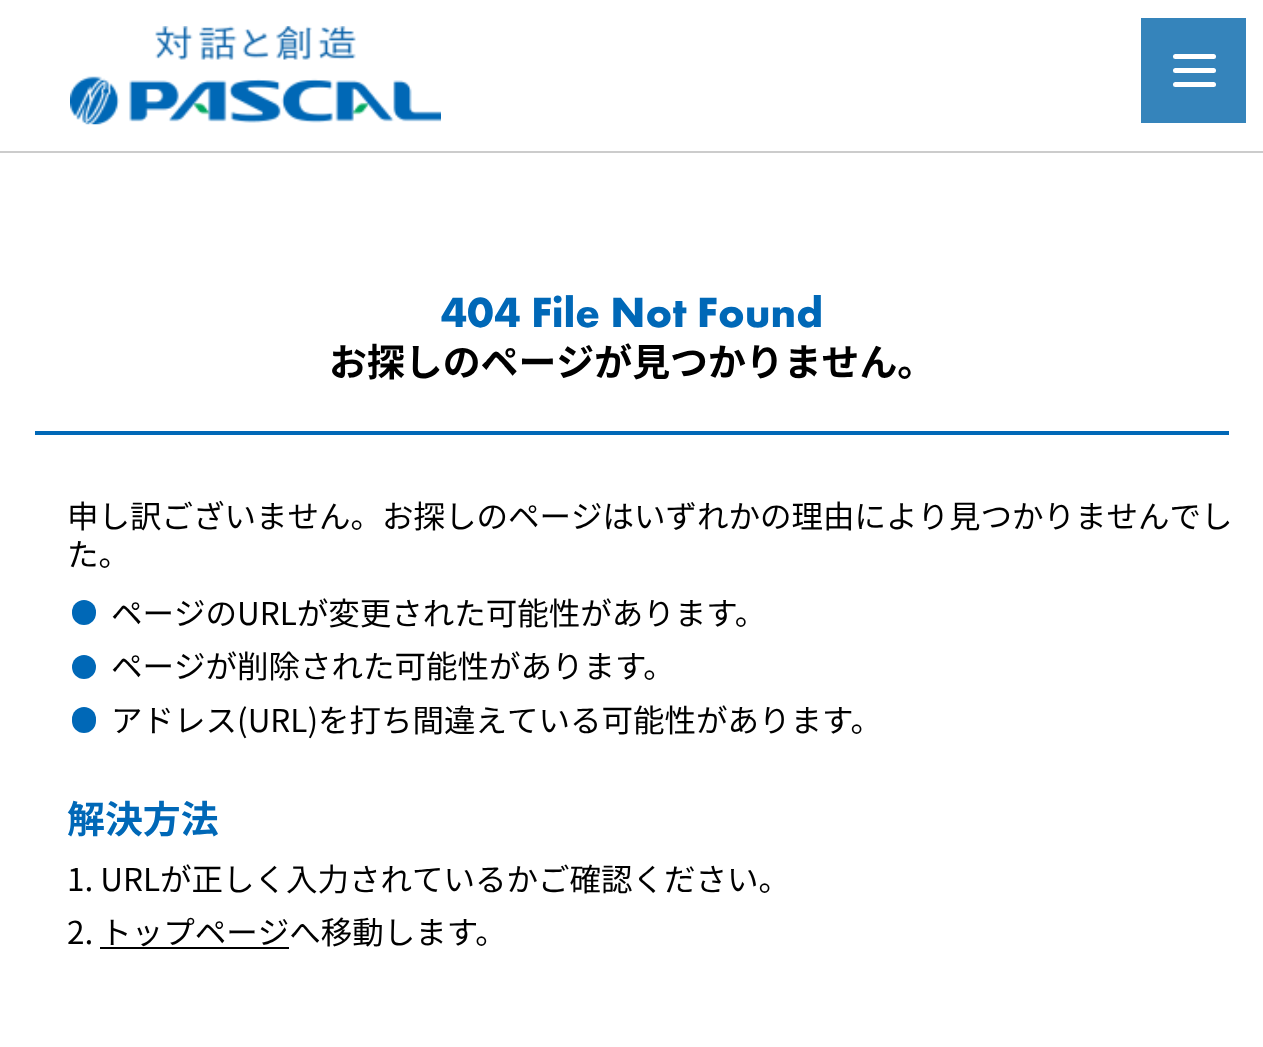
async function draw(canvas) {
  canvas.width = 1263;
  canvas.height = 1047;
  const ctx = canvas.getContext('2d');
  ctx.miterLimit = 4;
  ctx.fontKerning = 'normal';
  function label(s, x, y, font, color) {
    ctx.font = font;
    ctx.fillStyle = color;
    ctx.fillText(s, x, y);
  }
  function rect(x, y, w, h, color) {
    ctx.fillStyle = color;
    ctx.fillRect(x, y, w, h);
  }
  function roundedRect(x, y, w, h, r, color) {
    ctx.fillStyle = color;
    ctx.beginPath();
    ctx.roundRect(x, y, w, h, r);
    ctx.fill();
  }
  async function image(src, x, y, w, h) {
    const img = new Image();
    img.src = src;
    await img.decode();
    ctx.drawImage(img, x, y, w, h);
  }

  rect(0, 0, 1263, 1047, '#fff');
  rect(1141, 18, 105, 105, '#3584bb');
  roundedRect(1173, 68, 43, 5, 2.5, '#fff');
  roundedRect(1173, 54, 43, 5, 2.5, '#fff');
  roundedRect(1173, 82, 43, 5, 2.5, '#fff');
  rect(0, 151, 1263, 2, '#ccc');
  await image('assets/img1.png', 70, 26, 371, 99);
  rect(35, 431, 1194, 4, '#0068b7');
  label('404 File Not Found', 441, 327, 'bold 43.75px Futura PT', '#0068b7');
  label('お探しのページが見つかりません。', 329, 376, 'bold 37.9px Noto Sans CJK JP', '#000');
  label('申し訳ございません。お探しのページはいずれかの理由により見つかりませんでし', 67, 528, '31.5px Noto Sans CJK JP', '#000');
  label('た。', 67, 566, '31.5px Noto Sans CJK JP', '#000');
  roundedRect(72, 600, 24, 25, 12, '#0068b7');
  label('ページのURLが変更された可能性があります。', 111, 625, '31.5px Noto Sans CJK JP', '#000');
  ctx.fillStyle = '#0068b7';
  ctx.beginPath();
  ctx.arc(84, 667, 12, 0, 2 * Math.PI);
  ctx.fill();
  label('ページが削除された可能性があります。', 111, 678, '31.5px Noto Sans CJK JP', '#000');
  roundedRect(72, 707, 24, 26, 12, '#0068b7');
  label('アドレス(URL)を打ち間違えている可能性があります。', 111, 732, '31.5px Noto Sans CJK JP', '#000');
  label('解決方法', 67, 833, 'bold 37.9px Noto Sans CJK JP', '#0068b7');
  label('1. URLが正しく入力されているかご確認ください。', 67, 891, '31.5px Noto Sans CJK JP', '#000');
  label('2. トップページへ移動します。', 67, 944, '31.5px Noto Sans CJK JP', '#000');
  rect(100, 947, 189, 2, '#000');
}

draw(document.querySelector('canvas'));
